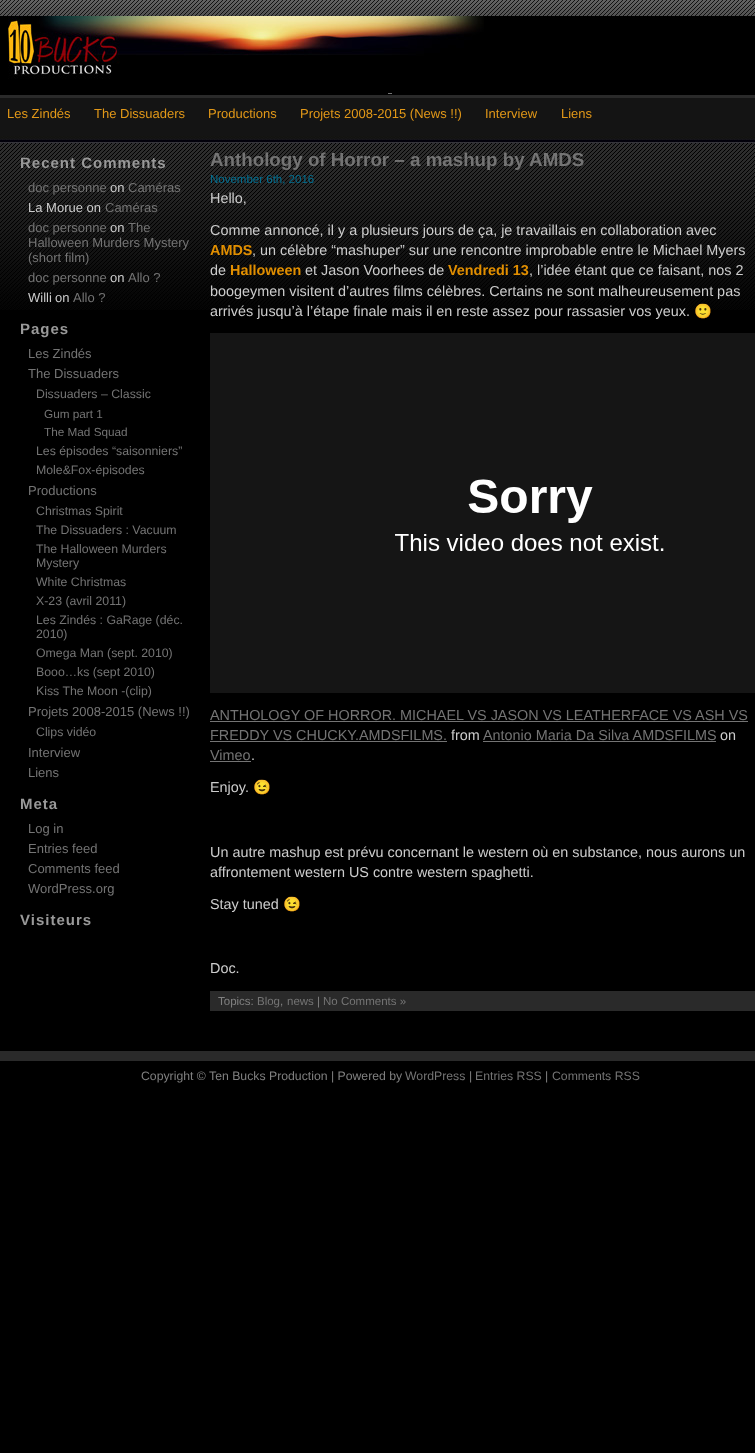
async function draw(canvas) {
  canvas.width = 755;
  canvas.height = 1453;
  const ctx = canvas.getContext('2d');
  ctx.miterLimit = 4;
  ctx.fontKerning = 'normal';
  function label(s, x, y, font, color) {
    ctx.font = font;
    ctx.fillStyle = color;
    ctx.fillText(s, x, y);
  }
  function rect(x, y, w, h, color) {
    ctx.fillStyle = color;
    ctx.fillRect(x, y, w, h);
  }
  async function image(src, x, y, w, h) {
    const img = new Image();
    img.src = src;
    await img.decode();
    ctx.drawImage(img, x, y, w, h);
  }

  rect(0, 0, 755, 1453, '#000');
  await image('assets/img1.png', 0, 0, 755, 310);
  rect(0, 16, 755, 79, '#000');
  rect(0, 95, 755, 3, '#2a2a2a');
  await image('assets/img2.png', 8, 16, 476, 63);
  rect(388, 93, 4, 1, '#747474');
  label('Les Zindés', 7, 118, '13px Liberation Sans', '#e29818');
  label('The Dissuaders', 94, 118, '13px Liberation Sans', '#e29818');
  label('Productions', 208, 118, '13px Liberation Sans', '#e29818');
  label('Projets 2008-2015 (News !!)', 300, 118, '13px Liberation Sans', '#e29818');
  label('Interview', 485, 118, '13px Liberation Sans', '#e29818');
  label('Liens', 561, 118, '13px Liberation Sans', '#e29818');
  ctx.letterSpacing = '1px';
  label('Recent Comments', 20, 168, 'bold 15px Liberation Sans', '#999');
  ctx.letterSpacing = '0px';
  label('doc personne', 28, 192, '13px Liberation Sans', '#747474');
  label('on', 110, 192, '13px Liberation Sans', '#ccc');
  label('Caméras', 128, 192, '13px Liberation Sans', '#747474');
  label('La Morue on', 28, 212, '13px Liberation Sans', '#ccc');
  label('Caméras', 105, 212, '13px Liberation Sans', '#747474');
  label('doc personne', 28, 232, '13px Liberation Sans', '#747474');
  label('on', 110, 232, '13px Liberation Sans', '#ccc');
  label('The', 128, 232, '13px Liberation Sans', '#747474');
  label('Halloween Murders Mystery', 28, 247, '13px Liberation Sans', '#747474');
  label('(short film)', 28, 262, '13px Liberation Sans', '#747474');
  label('doc personne', 28, 282, '13px Liberation Sans', '#747474');
  label('on', 110, 282, '13px Liberation Sans', '#ccc');
  label('Allo ?', 128, 282, '13px Liberation Sans', '#747474');
  label('Willi', 28, 302, '13px Liberation Sans', '#ccc');
  label('on', 55, 302, '13px Liberation Sans', '#ccc');
  label('Allo ?', 73, 302, '13px Liberation Sans', '#747474');
  ctx.letterSpacing = '1px';
  label('Pages', 20, 334, 'bold 15px Liberation Sans', '#999');
  ctx.letterSpacing = '0px';
  label('Les Zindés', 28, 358, '13px Liberation Sans', '#747474');
  label('The Dissuaders', 28, 378, '13px Liberation Sans', '#747474');
  label('Dissuaders – Classic', 36, 398, '12.3px Liberation Sans', '#747474');
  label('Gum part 1', 44, 418, '11.75px Liberation Sans', '#747474');
  label('The Mad Squad', 44, 436, '11.75px Liberation Sans', '#747474');
  label('Les épisodes “saisonniers”', 36, 455, '12.3px Liberation Sans', '#747474');
  label('Mole&Fox-épisodes', 36, 474, '12.3px Liberation Sans', '#747474');
  label('Productions', 28, 495, '13px Liberation Sans', '#747474');
  label('Christmas Spirit', 36, 515, '12.3px Liberation Sans', '#747474');
  label('The Dissuaders : Vacuum', 36, 534, '12.3px Liberation Sans', '#747474');
  label('The Halloween Murders', 36, 553, '12.3px Liberation Sans', '#747474');
  label('Mystery', 36, 567, '12.3px Liberation Sans', '#747474');
  label('White Christmas', 36, 586, '12.3px Liberation Sans', '#747474');
  label('X-23 (avril 2011)', 36, 605, '12.3px Liberation Sans', '#747474');
  label('Les Zindés : GaRage (déc.', 36, 624, '12.3px Liberation Sans', '#747474');
  label('2010)', 36, 638, '12.3px Liberation Sans', '#747474');
  label('Omega Man (sept. 2010)', 36, 657, '12.3px Liberation Sans', '#747474');
  label('Booo…ks (sept 2010)', 36, 676, '12.3px Liberation Sans', '#747474');
  label('Kiss The Moon -(clip)', 36, 695, '12.3px Liberation Sans', '#747474');
  label('Projets 2008-2015 (News !!)', 28, 716, '13px Liberation Sans', '#747474');
  label('Clips vidéo', 36, 736, '12.3px Liberation Sans', '#747474');
  label('Interview', 28, 757, '13px Liberation Sans', '#747474');
  label('Liens', 28, 777, '13px Liberation Sans', '#747474');
  ctx.letterSpacing = '1px';
  label('Meta', 20, 809, 'bold 15px Liberation Sans', '#999');
  ctx.letterSpacing = '0px';
  label('Log in', 28, 833, '13px Liberation Sans', '#747474');
  label('Entries feed', 28, 853, '13px Liberation Sans', '#747474');
  label('Comments feed', 28, 873, '13px Liberation Sans', '#747474');
  label('WordPress.org', 28, 893, '13px Liberation Sans', '#747474');
  ctx.letterSpacing = '1px';
  label('Visiteurs', 20, 925, 'bold 15px Liberation Sans', '#999');
  ctx.letterSpacing = '0px';
  label('Anthology of Horror – a mashup by AMDS', 210, 166, 'bold 18.75px Liberation Sans', '#747474');
  label('November 6th, 2016', 210, 183, '11.5px Liberation Sans', '#007093');
  label('Hello,', 210, 203, '14.4px Liberation Sans', '#ccc');
  label('Comme annoncé, il y a plusieurs jours de ça, je travaillais en collaboration avec', 210, 235, '14.4px Liberation Sans', '#ccc');
  label('AMDS', 210, 255, 'bold 14.4px Liberation Sans', '#e28f00');
  label(', un célèbre “mashuper” sur une rencontre improbable entre le Michael Myers', 252, 255, '14.4px Liberation Sans', '#ccc');
  label('de', 210, 275, '14.4px Liberation Sans', '#ccc');
  label('Halloween', 230, 275, 'bold 14.4px Liberation Sans', '#e28f00');
  label('et Jason Voorhees de', 305, 275, '14.4px Liberation Sans', '#ccc');
  label('Vendredi 13', 448, 275, 'bold 14.4px Liberation Sans', '#e28f00');
  label(', l’idée étant que ce faisant, nos 2', 529, 275, '14.4px Liberation Sans', '#ccc');
  label('boogeymen visitent d’autres films célèbres. Certains ne sont malheureusement pas', 210, 296, '14.4px Liberation Sans', '#ccc');
  label('arrivés jusqu’à l’étape finale mais il en reste assez pour rassasier vos yeux.', 210, 316, '14.4px Liberation Sans', '#ccc');
  label('🙂', 694, 316, '14.4px Noto Color Emoji', '#ccc');
  await image('assets/img3.png', 210, 333, 545, 360);
  label('ANTHOLOGY OF HORROR. MICHAEL VS JASON VS LEATHERFACE VS ASH VS', 210, 720, '14.4px Liberation Sans', '#747474');
  rect(210, 721, 538, 1, '#747474');
  label('FREDDY VS CHUCKY.AMDSFILMS.', 210, 740, '14.4px Liberation Sans', '#747474');
  rect(210, 741, 237, 1, '#747474');
  label('from', 451, 740, '14.4px Liberation Sans', '#ccc');
  label('Antonio Maria Da Silva AMDSFILMS', 483, 740, '14.4px Liberation Sans', '#747474');
  rect(483, 741, 233, 1, '#747474');
  label('on', 720, 740, '14.4px Liberation Sans', '#ccc');
  label('Vimeo', 210, 760, '14.4px Liberation Sans', '#747474');
  rect(210, 761, 41, 1, '#747474');
  label('.', 251, 760, '14.4px Liberation Sans', '#ccc');
  label('Enjoy.', 210, 792, '14.4px Liberation Sans', '#ccc');
  label('😉', 253, 792, '14.4px Noto Color Emoji', '#ccc');
  label('Un autre mashup est prévu concernant le western où en substance, nous aurons un', 210, 857, '14.4px Liberation Sans', '#ccc');
  label('affrontement western US contre western spaghetti.', 210, 877, '14.4px Liberation Sans', '#ccc');
  label('Stay tuned', 210, 909, '14.4px Liberation Sans', '#ccc');
  label('😉', 283, 909, '14.4px Noto Color Emoji', '#ccc');
  label('Doc.', 210, 973, '14.4px Liberation Sans', '#ccc');
  rect(210, 991, 545, 20, '#2a2a2a');
  label('Topics:', 218, 1005, '11.5px Liberation Sans', '#808080');
  label('Blog', 257, 1005, '11.5px Liberation Sans', '#747474');
  label(',', 280, 1005, '11.5px Liberation Sans', '#808080');
  label('news', 287, 1005, '11.5px Liberation Sans', '#747474');
  label('|', 317, 1005, '11.5px Liberation Sans', '#808080');
  label('No Comments »', 323, 1005, '11.5px Liberation Sans', '#747474');
  rect(0, 1051, 755, 10, '#2a2a2a');
  label('Copyright © Ten Bucks Production | Powered by', 141, 1080, '12.25px Liberation Sans', '#808080');
  label('WordPress', 405, 1080, '12.25px Liberation Sans', '#747474');
  label('|', 469, 1080, '12.25px Liberation Sans', '#808080');
  label('Entries RSS', 475, 1080, '12.25px Liberation Sans', '#747474');
  label('|', 545, 1080, '12.25px Liberation Sans', '#808080');
  label('Comments RSS', 552, 1080, '12.25px Liberation Sans', '#747474');
}

draw(document.querySelector('canvas'));
